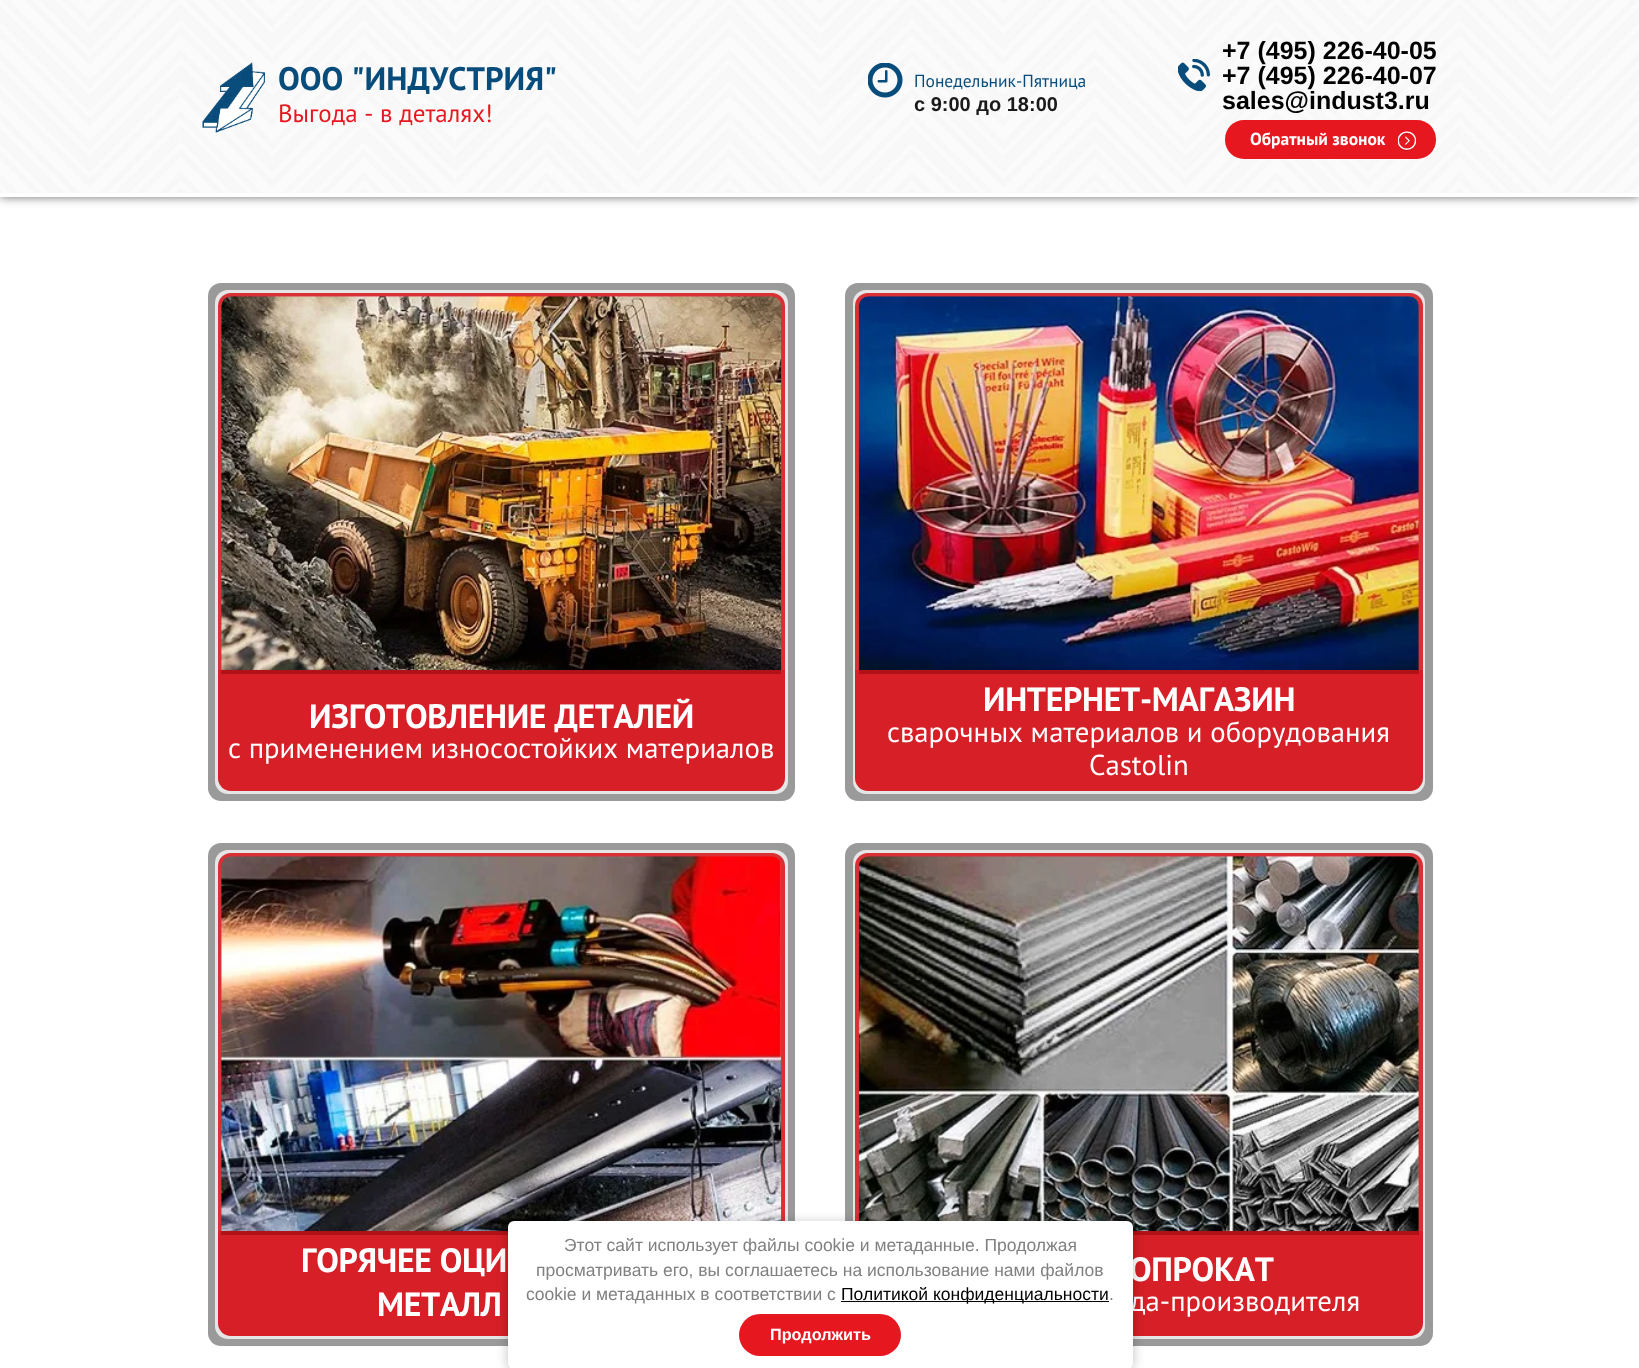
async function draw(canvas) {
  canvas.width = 1639;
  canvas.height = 1368;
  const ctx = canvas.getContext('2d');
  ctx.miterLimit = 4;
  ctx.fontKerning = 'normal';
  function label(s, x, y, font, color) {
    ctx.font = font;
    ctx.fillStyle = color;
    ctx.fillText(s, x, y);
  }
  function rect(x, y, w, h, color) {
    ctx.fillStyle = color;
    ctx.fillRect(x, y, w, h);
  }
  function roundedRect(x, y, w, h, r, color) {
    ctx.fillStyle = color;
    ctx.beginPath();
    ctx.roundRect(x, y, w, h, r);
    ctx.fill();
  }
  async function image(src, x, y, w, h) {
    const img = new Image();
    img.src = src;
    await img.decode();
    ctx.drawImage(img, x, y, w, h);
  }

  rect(0, 0, 1639, 1368, '#fff');
  ctx.fillStyle = '#000000ad';
  ctx.filter = 'blur(5.5px)';
  ctx.beginPath();
  ctx.rect(0, 0, 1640, 196);
  ctx.fill();
  ctx.filter = 'none';
  rect(0, 0, 1639, 197, '#fff');
  await image('assets/img1.png', 0, 0, 1639, 193);
  await image('assets/img2.png', 202, 62, 63, 71);
  label('ООО "ИНДУСТРИЯ"', 278, 90, 'bold 32.5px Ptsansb', '#084c7b');
  label('Выгода - в деталях!', 278, 122, '25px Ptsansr', '#e6171f');
  await image('assets/img3.png', 868, 63, 35, 35);
  label('Понедельник-Пятница', 914, 87, '17.5px Ptsansr', '#084c7b');
  label('с 9:00 до 18:00', 914, 111, 'bold 20px Liberation Sans', '#1a1a1a');
  await image('assets/img4.png', 1178, 59, 32, 32);
  label('+7 (495) 226-40-05', 1222, 59, 'bold 25px Liberation Sans', '#000');
  label('+7 (495) 226-40-07', 1222, 84, 'bold 25px Liberation Sans', '#000');
  label('sales@indust3.ru', 1222, 109, 'bold 25px Liberation Sans', '#000');
  roundedRect(1225, 120, 211, 39, 19, '#e6171f');
  label('Обратный звонок', 1250, 145, 'bold 17.5px Ptsansb', '#fff');
  await image('assets/img5.png', 1398, 131, 18, 20);
  roundedRect(208, 283, 587, 518, 13, '#9a9a9a');
  roundedRect(215, 290, 573, 504, 13, '#e6e6e6');
  ctx.fillStyle = '#d93036';
  ctx.beginPath();
  ctx.roundRect(218, 293, 567, 377, [13, 13, 0, 0]);
  ctx.fill();
  await image('assets/img6.png', 221, 296, 561, 374);
  ctx.fillStyle = '#d61f26';
  ctx.beginPath();
  ctx.roundRect(218, 670, 567, 121, [0, 0, 13, 13]);
  ctx.fill();
  rect(221, 670, 560, 4, '#b21117');
  ctx.letterSpacing = '-0.3px';
  label('ИЗГОТОВЛЕНИЕ ДЕТАЛЕЙ', 309, 728, 'bold 33.75px Ptsansb', '#fff');
  ctx.letterSpacing = '0px';
  label('с применением износостойких материалов', 228, 758, '28.75px Ptsansr', '#fff');
  roundedRect(845, 283, 588, 518, 13, '#9a9a9a');
  roundedRect(853, 290, 572, 504, 13, '#e6e6e6');
  ctx.fillStyle = '#d93036';
  ctx.beginPath();
  ctx.roundRect(855, 293, 568, 377, [13, 13, 0, 0]);
  ctx.fill();
  await image('assets/img7.png', 858, 296, 561, 374);
  ctx.fillStyle = '#d61f26';
  ctx.beginPath();
  ctx.roundRect(855, 670, 568, 121, [0, 0, 13, 13]);
  ctx.fill();
  rect(859, 670, 560, 4, '#b21117');
  ctx.letterSpacing = '-0.3px';
  label('ИНТЕРНЕТ-МАГАЗИН', 983, 711, 'bold 33.75px Ptsansb', '#fff');
  ctx.letterSpacing = '0px';
  label('сварочных материалов и оборудования', 887, 742, '28.75px Ptsansr', '#fff');
  label('Castolin', 1089, 775, '28.75px Ptsansr', '#fff');
  roundedRect(208, 843, 587, 503, 13, '#9a9a9a');
  roundedRect(215, 850, 573, 489, 13, '#e6e6e6');
  ctx.fillStyle = '#d93036';
  ctx.beginPath();
  ctx.roundRect(218, 853, 567, 378, [13, 13, 0, 0]);
  ctx.fill();
  ctx.fillStyle = '#d61f26';
  ctx.beginPath();
  ctx.roundRect(218, 1231, 567, 105, [0, 0, 13, 13]);
  ctx.fill();
  await image('assets/img8.png', 221, 856, 561, 376);
  rect(221, 1231, 287, 4, '#9a080d99');
  ctx.letterSpacing = '-0.3px';
  label('ГОРЯЧЕЕ ОЦИ', 301, 1272, 'bold 33.75px Ptsansb', '#fff');
  label('МЕТАЛЛ', 377, 1316, 'bold 33.75px Ptsansb', '#fff');
  roundedRect(845, 843, 588, 503, 13, '#9a9a9a');
  roundedRect(853, 850, 572, 489, 13, '#e6e6e6');
  ctx.fillStyle = '#d93036';
  ctx.beginPath();
  ctx.roundRect(855, 853, 568, 378, [13, 13, 0, 0]);
  ctx.fill();
  ctx.fillStyle = '#d61f26';
  ctx.beginPath();
  ctx.roundRect(855, 1231, 568, 105, [0, 0, 13, 13]);
  ctx.fill();
  await image('assets/img9.png', 858, 856, 561, 376);
  rect(1133, 1231, 286, 4, '#9a080d99');
  label('ОПРОКАТ', 1129, 1281, 'bold 33.75px Ptsansb', '#fff');
  ctx.letterSpacing = '0px';
  label('да-производителя', 1130, 1311, '28.75px Ptsansr', '#fff');
  ctx.fillStyle = '#00000040';
  ctx.filter = 'blur(6px)';
  ctx.beginPath();
  ctx.roundRect(508, 1223, 625, 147, 6);
  ctx.fill();
  ctx.filter = 'none';
  roundedRect(508, 1221, 625, 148, 6, '#fff');
  label('Этот сайт использует файлы cookie и метаданные. Продолжая', 564, 1251, '17.5px Liberation Sans', '#808080');
  label('просматривать его, вы соглашаетесь на использование нами файлов', 536, 1276, '17.5px Liberation Sans', '#808080');
  label('cookie и метаданных в соответствии с', 526, 1300, '17.5px Liberation Sans', '#808080');
  rect(841, 1301, 268, 1, '#000');
  label('Политикой конфиденциальности', 841, 1300, '17.5px Liberation Sans', '#000');
  label('.', 1109, 1300, '17.5px Liberation Sans', '#808080');
  roundedRect(739, 1314, 162, 42, 21, '#e6171f');
  label('Продолжить', 770, 1340, 'bold 16.25px Liberation Sans', '#fff');
}

draw(document.querySelector('canvas'));
